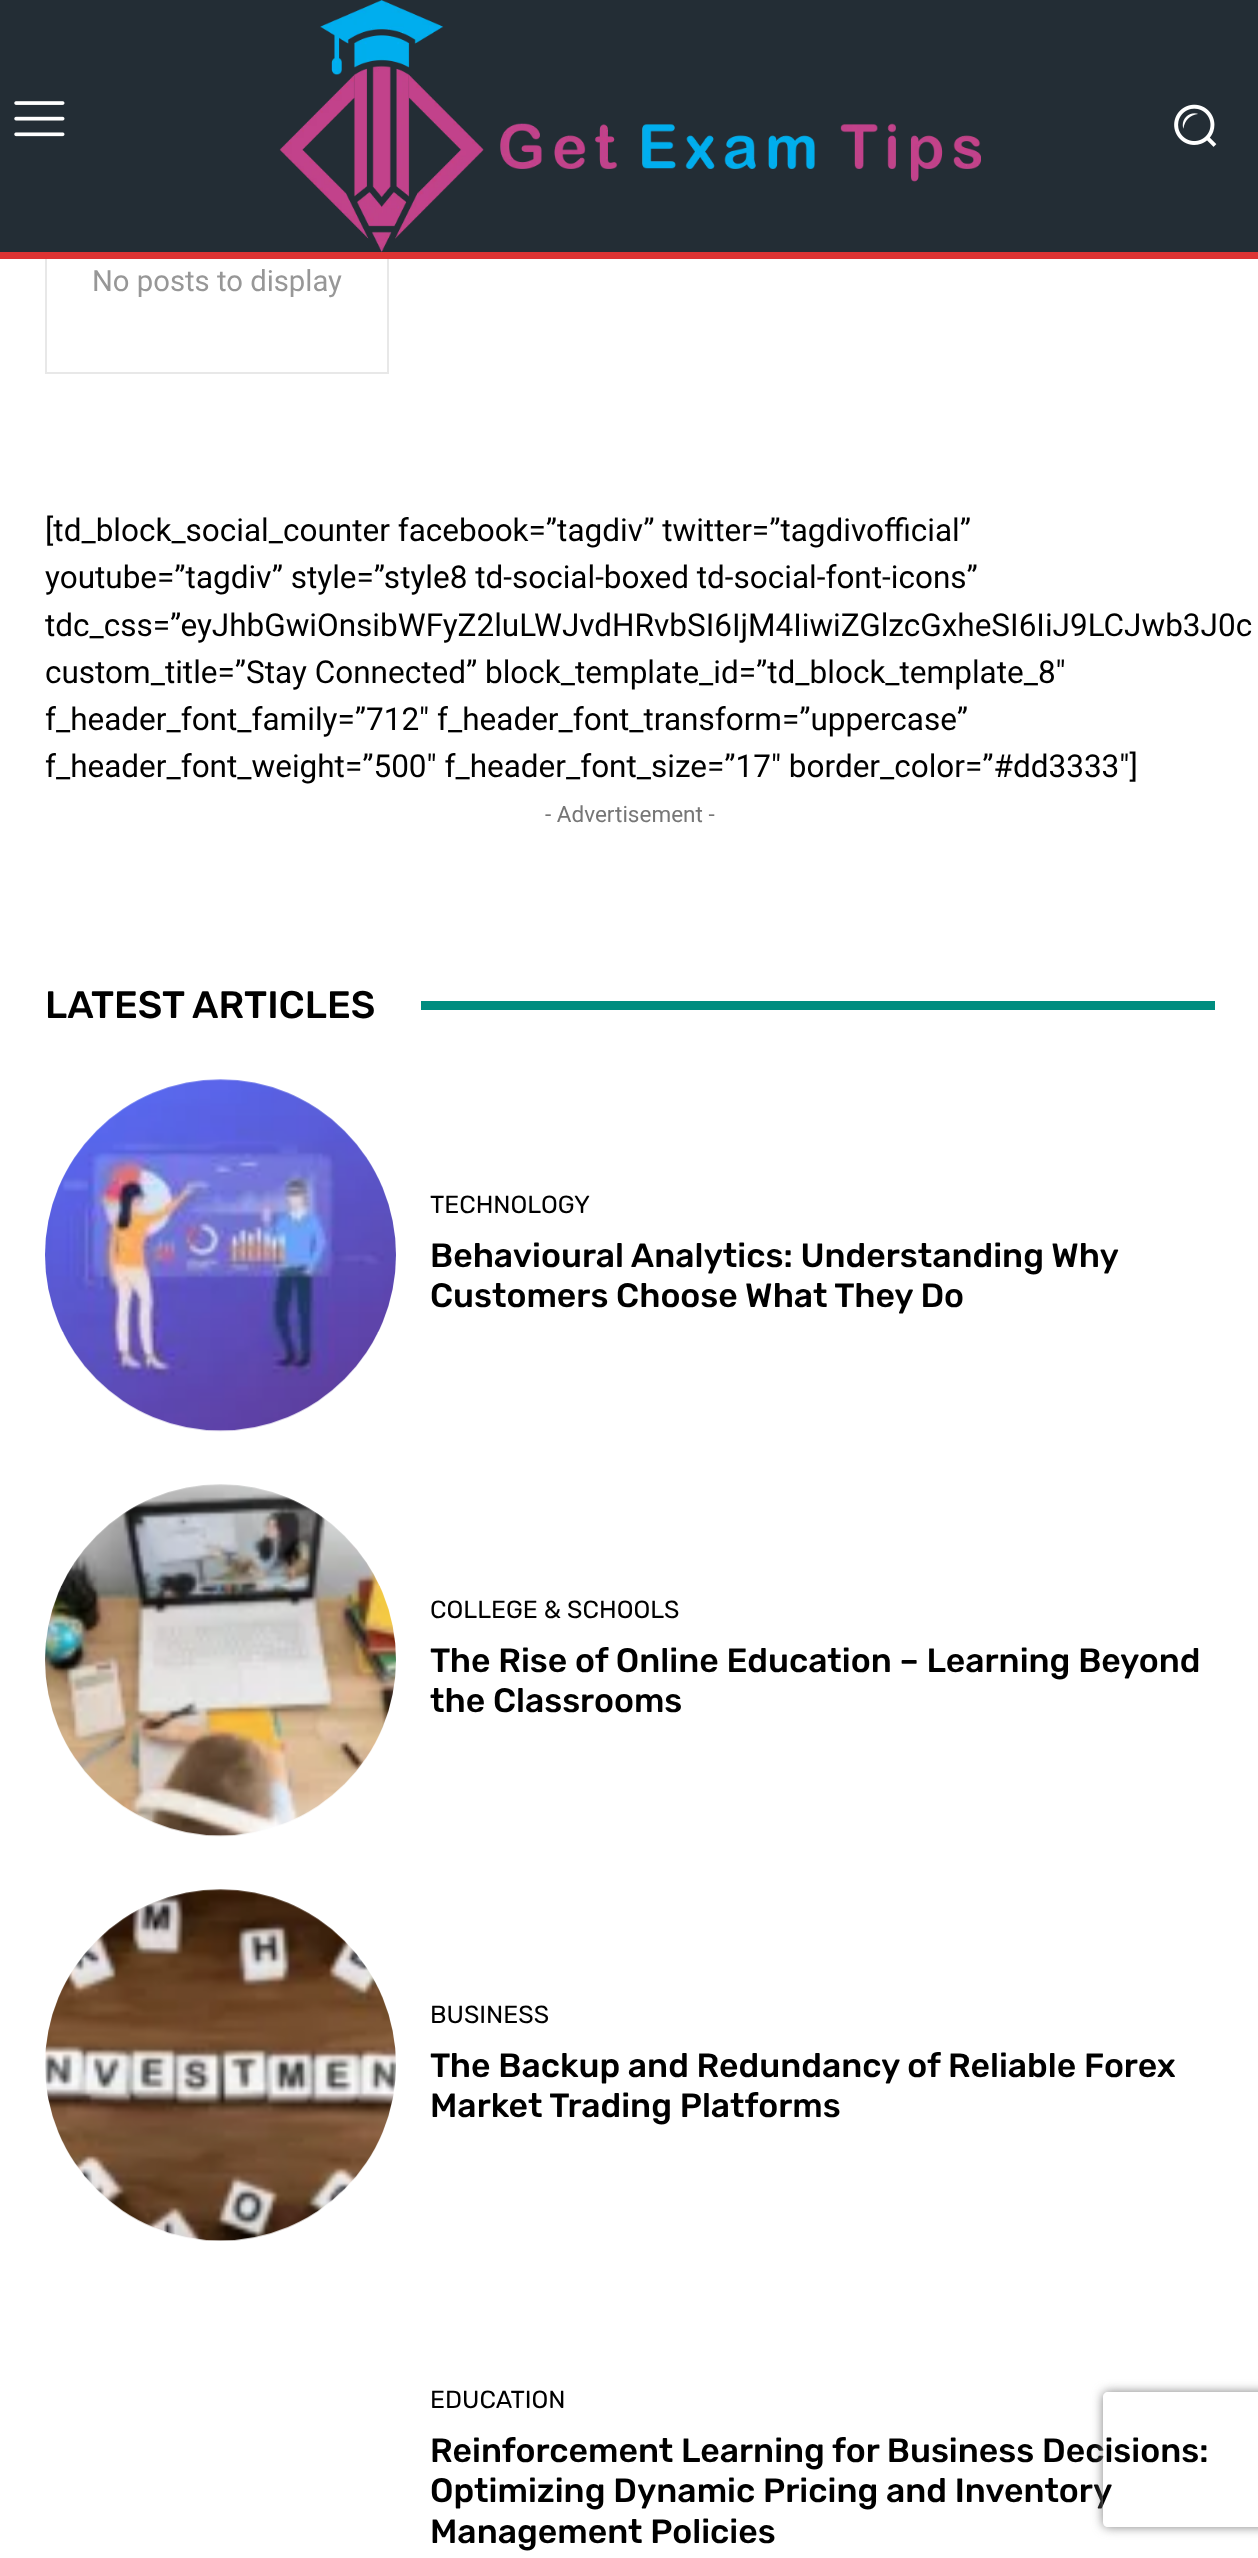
async function draw(canvas) {
  canvas.width = 1258;
  canvas.height = 2558;
  const ctx = canvas.getContext('2d');
  ctx.miterLimit = 4;
  ctx.fontKerning = 'normal';
  function label(s, x, y, font, color) {
    ctx.font = font;
    ctx.fillStyle = color;
    ctx.fillText(s, x, y);
  }
  function rect(x, y, w, h, color) {
    ctx.fillStyle = color;
    ctx.fillRect(x, y, w, h);
  }
  async function image(src, x, y, w, h) {
    const img = new Image();
    img.src = src;
    await img.decode();
    ctx.drawImage(img, x, y, w, h);
  }
  let path;

  rect(0, 0, 1258, 2558, '#fff');
  ctx.strokeStyle = '#e8e8e8';
  ctx.lineWidth = 2;
  ctx.strokeRect(46, 195, 342, 178);
  rect(0, 0, 1258, 252, '#232d35');
  await image('assets/img1.png', 14, 101, 51, 36);
  await image('assets/img2.png', 279, 0, 702, 252);
  await image('assets/img3.png', 1174, 104, 43, 43);
  rect(0, 252, 1258, 7, '#d33');
  label('No posts to display', 92, 291, '29.25px Roboto', '#979797');
  label('[td_block_social_counter facebook=”tagdiv” twitter=”tagdivofficial”', 45, 541, '31.5px Roboto', '#000');
  label('youtube=”tagdiv” style=”style8 td-social-boxed td-social-font-icons”', 45, 588, '31.5px Roboto', '#000');
  label('tdc_css=”eyJhbGwiOnsibWFyZ2luLWJvdHRvbSI6IjM4IiwiZGlzcGxheSI6IiJ9LCJwb3J0c', 45, 636, '31.5px Roboto', '#000');
  label('custom_title=”Stay Connected” block_template_id=”td_block_template_8″', 45, 683, '31.5px Roboto', '#000');
  label('f_header_font_family=”712″ f_header_font_transform=”uppercase”', 45, 730, '31.5px Roboto', '#000');
  label('f_header_font_weight=”500″ f_header_font_size=”17″ border_color=”#dd3333″]', 45, 777, '31.5px Roboto', '#000');
  label('- Advertisement -', 545, 822, '22.5px Roboto', '#767676');
  label('LATEST ARTICLES', 45, 1018, '500 38.25px Rubik', '#000');
  rect(421, 1001, 794, 9, '#008d7f');
  await image('assets/img4.png', 45, 1079, 351, 353);
  label('TECHNOLOGY', 430, 1213, '24.75px Rubik', '#000');
  label('Behavioural Analytics: Understanding Why', 430, 1267, '500 33.75px Rubik', '#000');
  label('Customers Choose What They Do', 430, 1307, '500 33.75px Rubik', '#000');
  await image('assets/img5.png', 45, 1484, 351, 353);
  label('COLLEGE & SCHOOLS', 430, 1618, '24.75px Rubik', '#000');
  label('The Rise of Online Education – Learning Beyond', 430, 1672, '500 33.75px Rubik', '#000');
  label('the Classrooms', 430, 1712, '500 33.75px Rubik', '#000');
  await image('assets/img6.png', 45, 1889, 351, 352);
  label('BUSINESS', 430, 2023, '24.75px Rubik', '#000');
  label('The Backup and Redundancy of Reliable Forex', 430, 2077, '500 33.75px Rubik', '#000');
  label('Market Trading Platforms', 430, 2117, '500 33.75px Rubik', '#000');
  label('EDUCATION', 430, 2408, '24.75px Rubik', '#000');
  label('Reinforcement Learning for Business Decisions:', 430, 2462, '500 33.75px Rubik', '#000');
  label('Optimizing Dynamic Pricing and Inventory', 430, 2502, '500 33.75px Rubik', '#000');
  label('Management Policies', 430, 2543, '500 33.75px Rubik', '#000');
  ctx.save();
  path = new Path2D('M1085 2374H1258V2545H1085ZM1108 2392H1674C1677 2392 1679 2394 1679 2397V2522C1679 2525 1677 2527 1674 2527H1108C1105 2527 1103 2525 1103 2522V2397C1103 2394 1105 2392 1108 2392Z');
  ctx.clip(path, 'evenodd');
  ctx.fillStyle = '#808080';
  ctx.filter = 'blur(5.5px)';
  ctx.beginPath();
  ctx.roundRect(1103, 2392, 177, 135, 5);
  ctx.fill();
  ctx.filter = 'none';
  ctx.restore();
}

draw(document.querySelector('canvas'));
